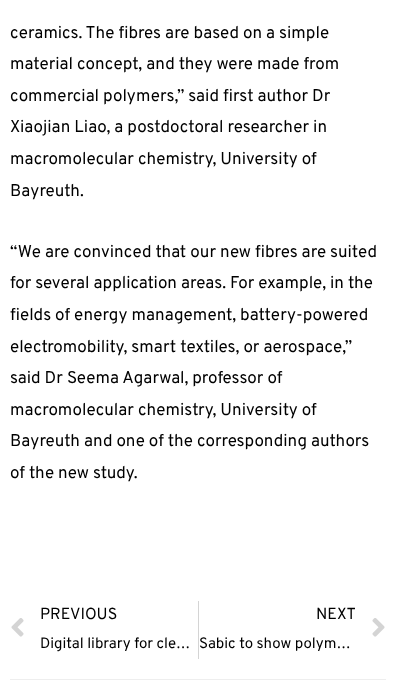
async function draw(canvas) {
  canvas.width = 396;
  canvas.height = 696;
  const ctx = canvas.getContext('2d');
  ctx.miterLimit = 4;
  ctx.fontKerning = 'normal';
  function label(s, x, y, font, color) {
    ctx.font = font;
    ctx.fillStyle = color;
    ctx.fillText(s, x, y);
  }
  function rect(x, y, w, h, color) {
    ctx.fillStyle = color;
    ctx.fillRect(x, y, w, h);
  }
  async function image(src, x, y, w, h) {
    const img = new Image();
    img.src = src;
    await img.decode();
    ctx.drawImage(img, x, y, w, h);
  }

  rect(0, 0, 396, 696, '#fff');
  label('ceramics. The fibres are based on a simple', 10, 38, '17px Overpass', '#000');
  label('material concept, and they were made from', 10, 69, '17px Overpass', '#000');
  label('commercial polymers,” said first author Dr', 10, 101, '17px Overpass', '#000');
  label('Xiaojian Liao, a postdoctoral researcher in', 10, 132, '17px Overpass', '#000');
  label('macromolecular chemistry, University of', 10, 164, '17px Overpass', '#000');
  label('Bayreuth.', 10, 196, '17px Overpass', '#000');
  label('“We are convinced that our new fibres are suited', 10, 257, '17px Overpass', '#000');
  label('for several application areas. For example, in the', 10, 288, '17px Overpass', '#000');
  label('fields of energy management, battery-powered', 10, 320, '17px Overpass', '#000');
  label('electromobility, smart textiles, or aerospace,”', 10, 352, '17px Overpass', '#000');
  label('said Dr Seema Agarwal, professor of', 10, 383, '17px Overpass', '#000');
  label('macromolecular chemistry, University of', 10, 415, '17px Overpass', '#000');
  label('Bayreuth and one of the corresponding authors', 10, 446, '17px Overpass', '#000');
  label('of the new study.', 10, 478, '17px Overpass', '#000');
  await image('assets/img1.png', 11, 618, 13, 19);
  label('PREVIOUS', 40, 619, '16px Overpass', '#000');
  label('Digital library for cle…', 40, 648, '15px Overpass', '#000');
  rect(198, 601, 1, 58, '#d4d4d4');
  label('NEXT', 316, 619, '16px Overpass', '#000');
  label('Sabic to show polym…', 199, 648, '15px Overpass', '#000');
  await image('assets/img2.png', 372, 618, 13, 19);
  rect(10, 679, 376, 1, '#eee');
}

draw(document.querySelector('canvas'));
